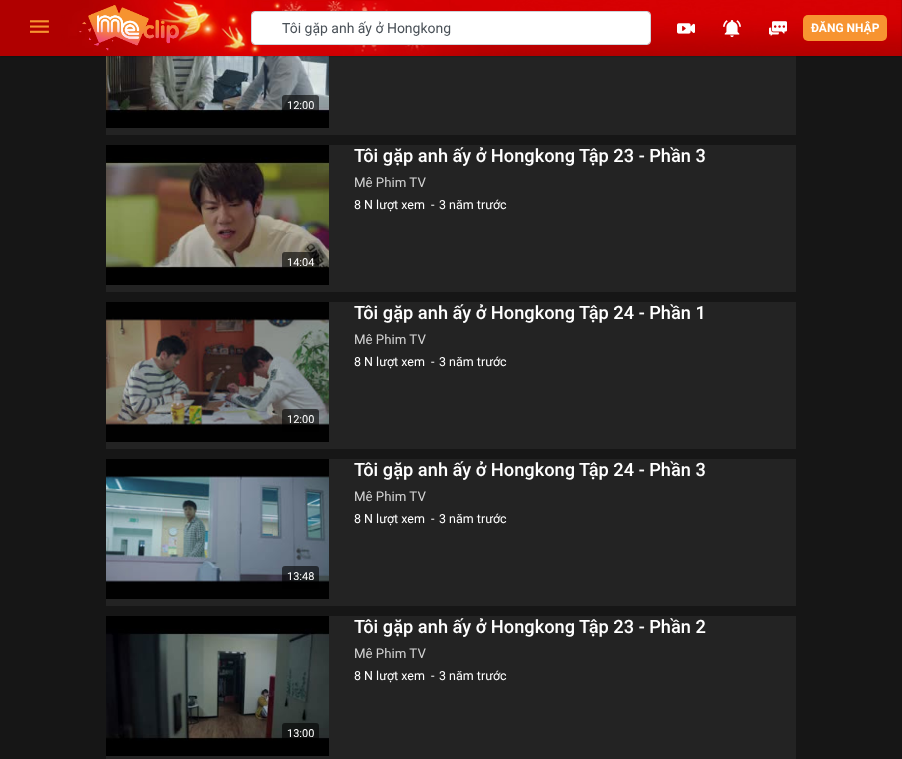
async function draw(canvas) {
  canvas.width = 902;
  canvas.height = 759;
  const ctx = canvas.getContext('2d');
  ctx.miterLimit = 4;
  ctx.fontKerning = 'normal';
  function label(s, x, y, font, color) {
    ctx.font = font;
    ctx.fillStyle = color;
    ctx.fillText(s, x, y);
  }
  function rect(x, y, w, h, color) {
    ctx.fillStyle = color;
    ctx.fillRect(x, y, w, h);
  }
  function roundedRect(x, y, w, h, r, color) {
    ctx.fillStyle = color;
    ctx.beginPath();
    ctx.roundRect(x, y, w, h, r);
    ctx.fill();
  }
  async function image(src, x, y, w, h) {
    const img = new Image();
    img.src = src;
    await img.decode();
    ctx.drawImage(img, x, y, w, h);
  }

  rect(0, 0, 902, 759, '#161616');
  rect(106, 56, 690, 79, '#232323');
  await image('assets/img7.png', 106, 56, 223, 72);
  ctx.fillStyle = '#0000004d';
  ctx.filter = 'blur(1px)';
  ctx.beginPath();
  ctx.rect(0, 0, 902, 56);
  ctx.fill();
  ctx.filter = 'none';
  await image('assets/img1.png', 0, 0, 902, 56);
  await image('assets/img2.png', 30, 20, 19, 13);
  await image('assets/img3.png', 79, 5, 100, 46);
  roundedRect(252, 12, 398, 32, 2.5, '#fff');
  ctx.beginPath();
  ctx.roundRect(251.5, 11.5, 399, 33, 3.5);
  ctx.strokeStyle = '#ced4da';
  ctx.stroke();
  label('Tôi gặp anh ấy ở Hongkong', 282, 33, '14px Roboto', '#495057');
  await image('assets/img4.png', 677, 23, 18, 11);
  await image('assets/img5.png', 723, 20, 18, 18);
  await image('assets/img6.png', 769, 21, 18, 15);
  roundedRect(803, 15, 84, 26, 5, '#f79431');
  label('ĐĂNG NHẬP', 811, 32, 'bold 12px Roboto', '#fff');
  roundedRect(282, 95, 37, 23, 3, '#00000099');
  label('12:00', 287, 109, '11px Roboto', '#fff');
  rect(106, 145, 690, 147, '#232323');
  label('Tôi gặp anh ấy ở Hongkong Tập 23 - Phần 3', 354, 162, '500 18.25px Roboto', '#fff');
  label('Mê Phim TV', 354, 187, '13.25px Roboto', '#d3d3d3');
  label('8 N lượt xem', 354, 209, '12.5px Roboto', '#fff');
  label('-', 431, 209, '12.5px Roboto', '#fff');
  label('3 năm trước', 439, 209, '12.5px Roboto', '#fff');
  await image('assets/img8.png', 106, 145, 223, 140);
  roundedRect(282, 252, 37, 23, 3, '#00000099');
  label('14:04', 287, 266, '11px Roboto', '#fff');
  rect(106, 302, 690, 147, '#232323');
  label('Tôi gặp anh ấy ở Hongkong Tập 24 - Phần 1', 354, 319, '500 18.25px Roboto', '#fff');
  label('Mê Phim TV', 354, 344, '13.25px Roboto', '#d3d3d3');
  label('8 N lượt xem', 354, 366, '12.5px Roboto', '#fff');
  label('-', 431, 366, '12.5px Roboto', '#fff');
  label('3 năm trước', 439, 366, '12.5px Roboto', '#fff');
  await image('assets/img9.png', 106, 302, 223, 140);
  roundedRect(282, 409, 37, 23, 3, '#00000099');
  label('12:00', 287, 423, '11px Roboto', '#fff');
  rect(106, 459, 690, 147, '#232323');
  label('Tôi gặp anh ấy ở Hongkong Tập 24 - Phần 3', 354, 476, '500 18.25px Roboto', '#fff');
  label('Mê Phim TV', 354, 501, '13.25px Roboto', '#d3d3d3');
  label('8 N lượt xem', 354, 523, '12.5px Roboto', '#fff');
  label('-', 431, 523, '12.5px Roboto', '#fff');
  label('3 năm trước', 439, 523, '12.5px Roboto', '#fff');
  await image('assets/img10.png', 106, 459, 223, 140);
  roundedRect(282, 566, 37, 23, 3, '#00000099');
  label('13:48', 287, 580, '11px Roboto', '#fff');
  rect(106, 616, 690, 143, '#232323');
  label('Tôi gặp anh ấy ở Hongkong Tập 23 - Phần 2', 354, 633, '500 18.25px Roboto', '#fff');
  label('Mê Phim TV', 354, 658, '13.25px Roboto', '#d3d3d3');
  label('8 N lượt xem', 354, 680, '12.5px Roboto', '#fff');
  label('-', 431, 680, '12.5px Roboto', '#fff');
  label('3 năm trước', 439, 680, '12.5px Roboto', '#fff');
  await image('assets/img11.png', 106, 616, 223, 140);
  roundedRect(282, 723, 37, 23, 3, '#00000099');
  label('13:00', 287, 737, '11px Roboto', '#fff');
}

draw(document.querySelector('canvas'));
